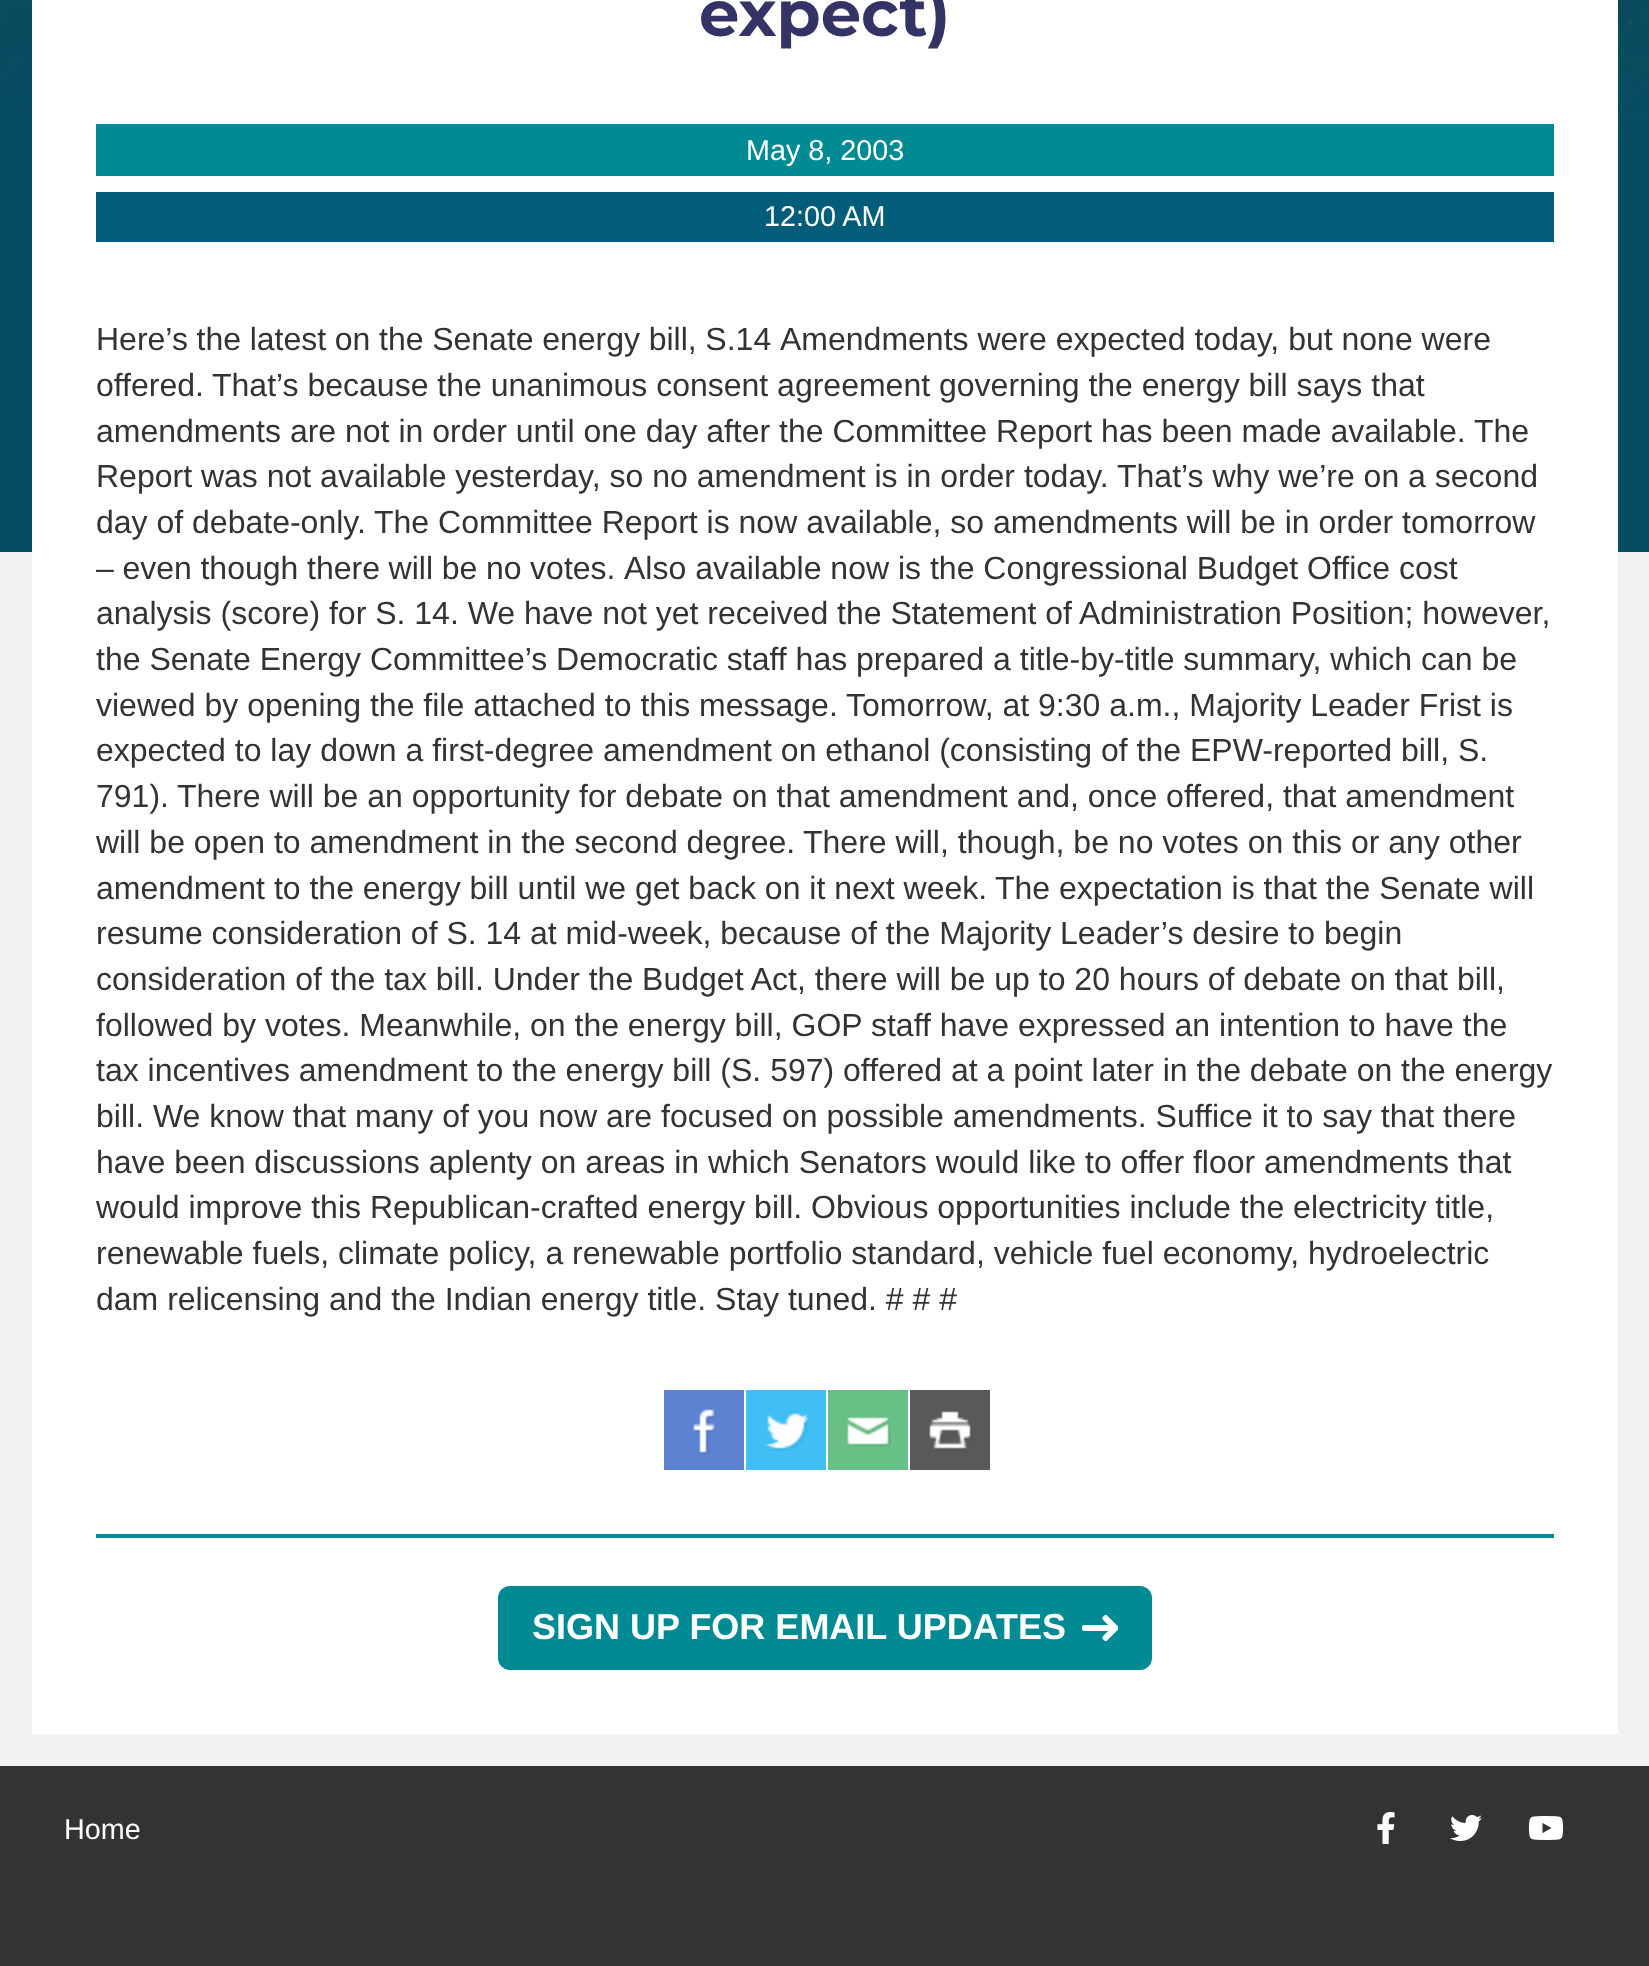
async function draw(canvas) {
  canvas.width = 1649;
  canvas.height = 1966;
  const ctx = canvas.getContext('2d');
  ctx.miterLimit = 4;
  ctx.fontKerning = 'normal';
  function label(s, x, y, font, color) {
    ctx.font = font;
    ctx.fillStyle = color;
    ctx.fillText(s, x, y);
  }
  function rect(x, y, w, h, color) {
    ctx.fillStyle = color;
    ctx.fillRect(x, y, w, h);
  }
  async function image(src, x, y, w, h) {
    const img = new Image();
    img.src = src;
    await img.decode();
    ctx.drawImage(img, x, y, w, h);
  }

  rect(0, 0, 1649, 1966, '#f2f2f2');
  await image('assets/img1.png', 0, 0, 1649, 152);
  rect(0, 152, 1649, 400, '#064d62');
  rect(32, 0, 1586, 1734, '#fff');
  label('expect)', 699, 36, 'bold 64px Montserrat', '#336');
  rect(96, 124, 1458, 52, '#008a94');
  label('May 8, 2003', 746, 160, '28.75px Liberation Sans', '#fff');
  rect(96, 192, 1458, 50, '#015d79');
  label('12:00 AM', 764, 226, '28.75px Liberation Sans', '#fff');
  ctx.wordSpacing = '-0.25px';
  label('Here’s the latest on the Senate energy bill, S.14', 96, 350, '32px Liberation Sans', '#333');
  ctx.wordSpacing = '0px';
  label('Amendments were expected today, but none were', 780, 350, '32px Liberation Sans', '#333');
  label('offered.', 96, 396, '32px Liberation Sans', '#333');
  label('That’s because the unanimous consent agreement governing the energy bill says that', 212, 396, '32px Liberation Sans', '#333');
  label('amendments are not in order until one day after the Committee Report has been made available.', 96, 442, '32px Liberation Sans', '#333');
  label('The', 1474, 442, '32px Liberation Sans', '#333');
  label('Report was not available yesterday, so no amendment is in order today.', 96, 487, '32px Liberation Sans', '#333');
  label('That’s why we’re on a second', 1117, 487, '32px Liberation Sans', '#333');
  label('day of debate-only.', 96, 533, '32px Liberation Sans', '#333');
  label('The Committee Report is now available, so amendments will be in order tomorrow', 374, 533, '32px Liberation Sans', '#333');
  ctx.wordSpacing = '-0.25px';
  label('– even though there will be no votes.', 96, 579, '32px Liberation Sans', '#333');
  ctx.wordSpacing = '0px';
  label('Also available now is the Congressional Budget Office cost', 624, 579, '32px Liberation Sans', '#333');
  label('analysis (score) for S. 14. We have not yet received the Statement of Administration Position; however,', 96, 624, '32px Liberation Sans', '#333');
  label('the Senate Energy Committee’s Democratic staff has prepared a title-by-title summary, which can be', 96, 670, '32px Liberation Sans', '#333');
  label('viewed by opening the file attached to this message.', 96, 716, '32px Liberation Sans', '#333');
  label('Tomorrow, at 9:30 a.m., Majority Leader Frist is', 846, 716, '32px Liberation Sans', '#333');
  label('expected to lay down a first-degree amendment on ethanol (consisting of the EPW-reported bill, S.', 96, 761, '32px Liberation Sans', '#333');
  label('791).', 96, 807, '32px Liberation Sans', '#333');
  label('There will be an opportunity for debate on that amendment and, once offered, that amendment', 177, 807, '32px Liberation Sans', '#333');
  label('will be open to amendment in the second degree.', 96, 853, '32px Liberation Sans', '#333');
  label('There will, though, be no votes on this or any other', 803, 853, '32px Liberation Sans', '#333');
  label('amendment to the energy bill until we get back on it next week.', 96, 899, '32px Liberation Sans', '#333');
  label('The expectation is that the Senate will', 995, 899, '32px Liberation Sans', '#333');
  label('resume consideration of S. 14 at mid-week, because of the Majority Leader’s desire to begin', 96, 944, '32px Liberation Sans', '#333');
  label('consideration of the tax bill. Under the Budget Act, there will be up to 20 hours of debate on that bill,', 96, 990, '32px Liberation Sans', '#333');
  label('followed by votes. Meanwhile, on the energy bill, GOP staff have expressed an intention to have the', 96, 1036, '32px Liberation Sans', '#333');
  label('tax incentives amendment to the energy bill (S. 597) offered at a point later in the debate on the energy', 96, 1081, '32px Liberation Sans', '#333');
  label('bill. We know that many of you now are focused on possible amendments. Suffice it to say that there', 96, 1127, '32px Liberation Sans', '#333');
  label('have been discussions aplenty on areas in which Senators would like to offer floor amendments that', 96, 1173, '32px Liberation Sans', '#333');
  label('would improve this Republican-crafted energy bill. Obvious opportunities include the electricity title,', 96, 1218, '32px Liberation Sans', '#333');
  label('renewable fuels, climate policy, a renewable portfolio standard, vehicle fuel economy, hydroelectric', 96, 1264, '32px Liberation Sans', '#333');
  label('dam relicensing and the Indian energy title. Stay tuned. # # #', 96, 1310, '32px Liberation Sans', '#333');
  rect(664, 1390, 80, 80, '#5d82d1');
  await image('assets/img2.png', 693, 1409, 23, 46);
  rect(746, 1390, 80, 80, '#40bff5');
  await image('assets/img3.png', 765, 1413, 45, 38);
  rect(828, 1390, 80, 80, '#69c086');
  await image('assets/img4.png', 847, 1417, 44, 30);
  rect(910, 1390, 80, 80, '#595959');
  await image('assets/img5.png', 929, 1411, 43, 39);
  rect(96, 1534, 1458, 4, '#008a94');
  ctx.beginPath();
  ctx.roundRect(499, 1587, 652, 82, 11);
  ctx.fill();
  ctx.strokeStyle = '#008a94';
  ctx.lineWidth = 2;
  ctx.stroke();
  label('SIGN UP FOR EMAIL UPDATES', 532, 1639, 'bold 36px Liberation Sans', '#fff');
  await image('assets/img6.png', 1082, 1614, 36, 28);
  rect(0, 1766, 1649, 200, '#333');
  label('Home', 64, 1839, '28.75px Liberation Sans', '#fff');
  await image('assets/img7.png', 1377, 1812, 18, 32);
  await image('assets/img8.png', 1450, 1815, 32, 26);
  await image('assets/img9.png', 1528, 1816, 36, 24);
}

draw(document.querySelector('canvas'));
